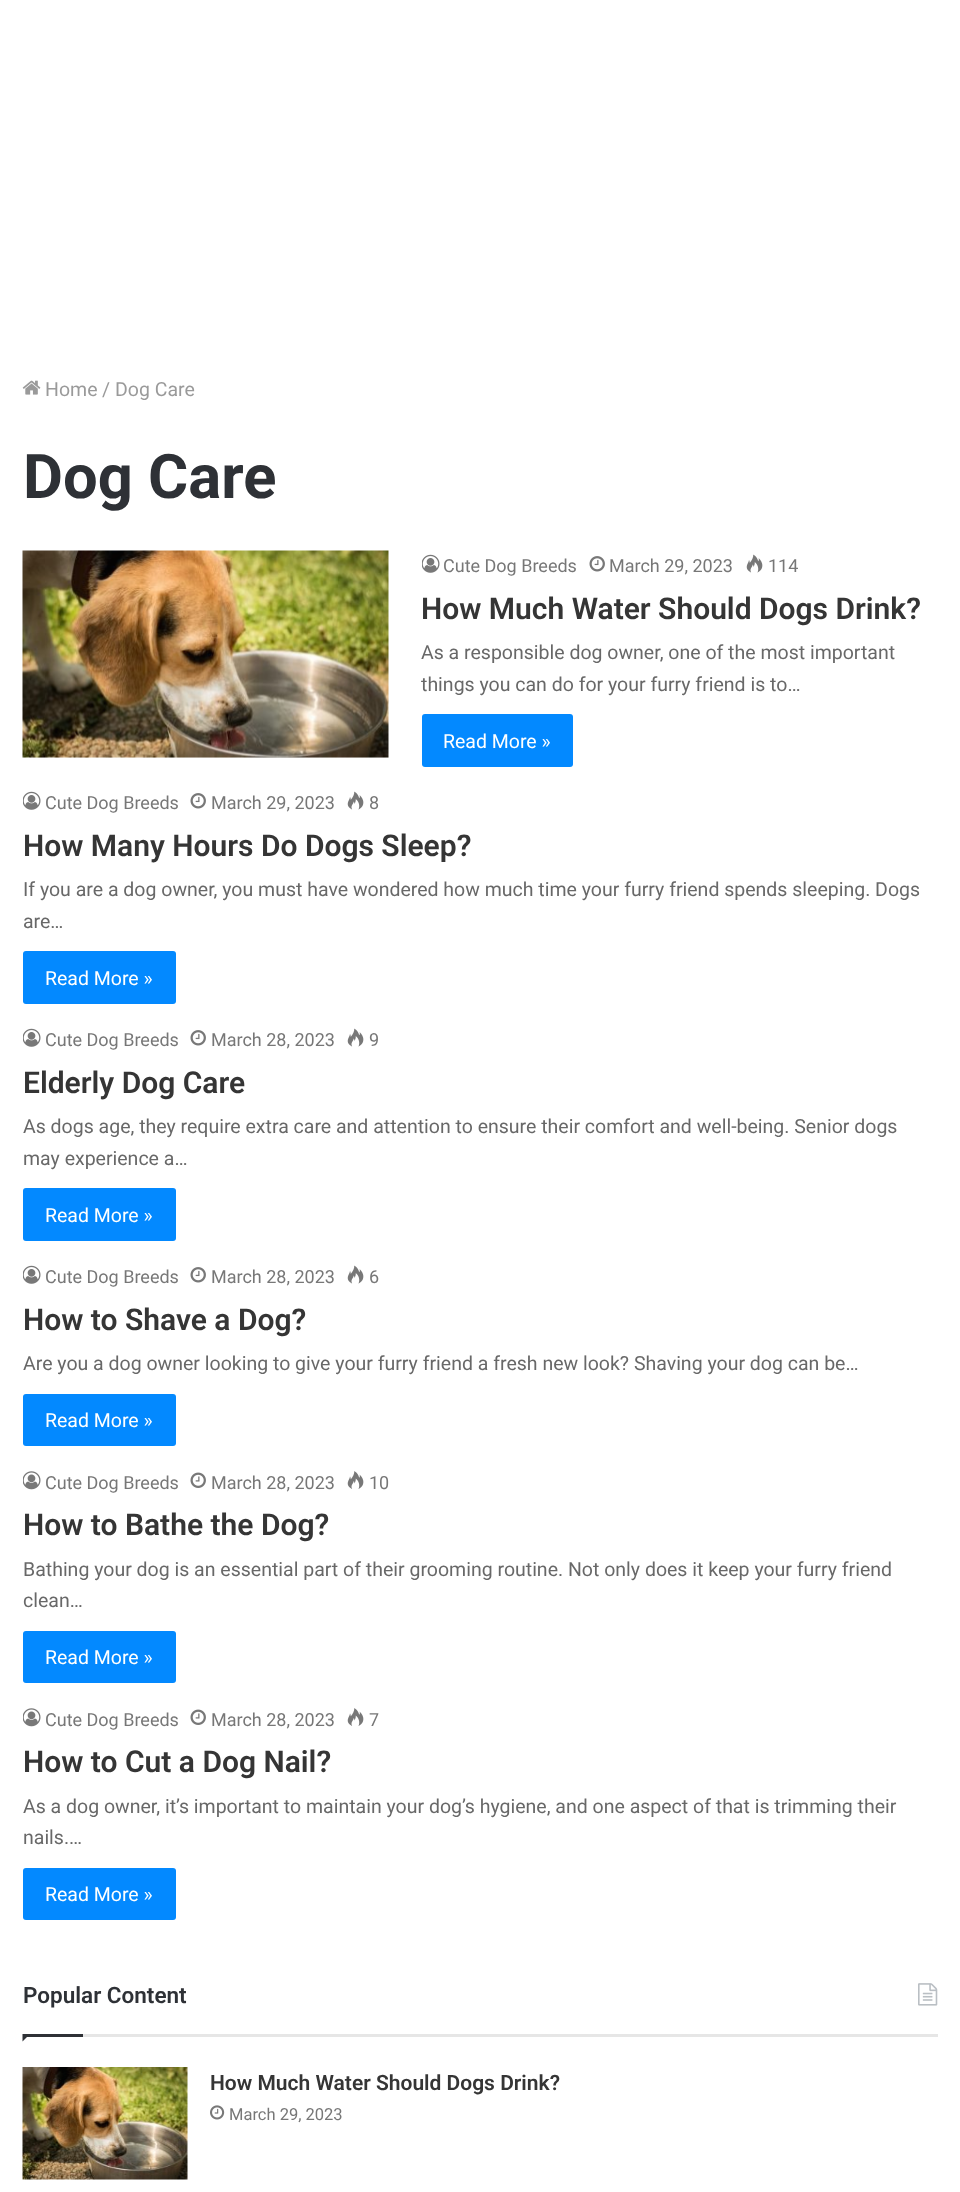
async function draw(canvas) {
  canvas.width = 960;
  canvas.height = 2192;
  const ctx = canvas.getContext('2d');
  ctx.miterLimit = 4;
  ctx.fontKerning = 'normal';
  function label(s, x, y, font, color) {
    ctx.font = font;
    ctx.fillStyle = color;
    ctx.fillText(s, x, y);
  }
  function rect(x, y, w, h, color) {
    ctx.fillStyle = color;
    ctx.fillRect(x, y, w, h);
  }
  function roundedRect(x, y, w, h, r, color) {
    ctx.fillStyle = color;
    ctx.beginPath();
    ctx.roundRect(x, y, w, h, r);
    ctx.fill();
  }
  async function image(src, x, y, w, h) {
    const img = new Image();
    img.src = src;
    await img.decode();
    ctx.drawImage(img, x, y, w, h);
  }
  let path;

  rect(0, 0, 960, 2192, '#fff');
  await image('assets/img1.png', 22, 380, 19, 15);
  label('Home', 45, 396, '19.5px Roboto', '#9a9a9a');
  label('/', 102, 396, '19.5px Roboto', '#9a9a9a');
  label('Dog Care', 115, 396, '19.5px Roboto', '#9a9a9a');
  label('Dog Care', 23, 498, 'bold 61.5px Roboto', '#2e3136');
  await image('assets/img2.png', 22, 550, 367, 208);
  await image('assets/img3.png', 422, 554, 18, 19);
  label('Cute Dog Breeds', 443, 572, '18px Roboto', '#777');
  await image('assets/img4.png', 589, 556, 16, 16);
  label('March 29, 2023', 609, 572, '18px Roboto', '#777');
  await image('assets/img5.png', 746, 554, 17, 19);
  label('114', 768, 572, '18px Roboto', '#777');
  label('How Much Water Should Dogs Drink?', 421, 619, '600 30px Roboto', '#353535');
  label('As a responsible dog owner, one of the most important', 421, 659, '19.5px Roboto', '#686868');
  label('things you can do for your furry friend is to…', 421, 691, '19.5px Roboto', '#686868');
  roundedRect(422, 714, 151, 53, 3, '#0389ff');
  label('Read More »', 443, 748, '19.5px Roboto', '#fff');
  await image('assets/img3.png', 23, 791, 18, 19);
  label('Cute Dog Breeds', 45, 809, '18px Roboto', '#777');
  await image('assets/img4.png', 190, 793, 16, 16);
  label('March 29, 2023', 211, 809, '18px Roboto', '#777');
  await image('assets/img5.png', 347, 791, 17, 19);
  label('8', 369, 809, '18px Roboto', '#777');
  label('How Many Hours Do Dogs Sleep?', 23, 856, '600 30px Roboto', '#353535');
  label('If you are a dog owner, you must have wondered how much time your furry friend spends sleeping. Dogs', 23, 896, '19.5px Roboto', '#686868');
  label('are…', 23, 928, '19.5px Roboto', '#686868');
  roundedRect(23, 951, 153, 53, 3, '#0389ff');
  label('Read More »', 45, 985, '19.5px Roboto', '#fff');
  await image('assets/img3.png', 23, 1028, 18, 19);
  label('Cute Dog Breeds', 45, 1046, '18px Roboto', '#777');
  await image('assets/img4.png', 190, 1030, 16, 16);
  label('March 28, 2023', 211, 1046, '18px Roboto', '#777');
  await image('assets/img5.png', 347, 1028, 17, 19);
  label('9', 369, 1046, '18px Roboto', '#777');
  label('Elderly Dog Care', 23, 1093, '600 30px Roboto', '#353535');
  label('As dogs age, they require extra care and attention to ensure their comfort and well-being. Senior dogs', 23, 1133, '19.5px Roboto', '#686868');
  label('may experience a…', 23, 1165, '19.5px Roboto', '#686868');
  roundedRect(23, 1188, 153, 53, 3, '#0389ff');
  label('Read More »', 45, 1222, '19.5px Roboto', '#fff');
  await image('assets/img3.png', 23, 1265, 18, 19);
  label('Cute Dog Breeds', 45, 1283, '18px Roboto', '#777');
  await image('assets/img4.png', 190, 1267, 16, 16);
  label('March 28, 2023', 211, 1283, '18px Roboto', '#777');
  await image('assets/img5.png', 347, 1265, 17, 19);
  label('6', 369, 1283, '18px Roboto', '#777');
  label('How to Shave a Dog?', 23, 1330, '600 30px Roboto', '#353535');
  label('Are you a dog owner looking to give your furry friend a fresh new look? Shaving your dog can be…', 23, 1370, '19.5px Roboto', '#686868');
  roundedRect(23, 1394, 153, 52, 3, '#0389ff');
  label('Read More »', 45, 1427, '19.5px Roboto', '#fff');
  await image('assets/img6.png', 23, 1471, 18, 19);
  label('Cute Dog Breeds', 45, 1489, '18px Roboto', '#777');
  await image('assets/img7.png', 190, 1472, 16, 16);
  label('March 28, 2023', 211, 1489, '18px Roboto', '#777');
  await image('assets/img8.png', 347, 1471, 17, 18);
  label('10', 369, 1489, '18px Roboto', '#777');
  label('How to Bathe the Dog?', 23, 1535, '600 30px Roboto', '#353535');
  label('Bathing your dog is an essential part of their grooming routine. Not only does it keep your furry friend', 23, 1576, '19.5px Roboto', '#686868');
  label('clean…', 23, 1607, '19.5px Roboto', '#686868');
  roundedRect(23, 1631, 153, 52, 3, '#0389ff');
  label('Read More »', 45, 1664, '19.5px Roboto', '#fff');
  await image('assets/img6.png', 23, 1708, 18, 19);
  label('Cute Dog Breeds', 45, 1726, '18px Roboto', '#777');
  await image('assets/img7.png', 190, 1709, 16, 16);
  label('March 28, 2023', 211, 1726, '18px Roboto', '#777');
  await image('assets/img8.png', 347, 1708, 17, 18);
  label('7', 369, 1726, '18px Roboto', '#777');
  label('How to Cut a Dog Nail?', 23, 1772, '600 30px Roboto', '#353535');
  label('As a dog owner, it’s important to maintain your dog’s hygiene, and one aspect of that is trimming their', 23, 1813, '19.5px Roboto', '#686868');
  label('nails.…', 23, 1844, '19.5px Roboto', '#686868');
  roundedRect(23, 1868, 153, 52, 3, '#0389ff');
  label('Read More »', 45, 1901, '19.5px Roboto', '#fff');
  rect(83, 2034, 855, 3, '#e6e6e6');
  label('Popular Content', 23, 2003, '600 22.5px Roboto', '#2e3136');
  await image('assets/img9.png', 918, 1983, 20, 23);
  path = new Path2D('M22.5 2034H30L22.5 2041.5Z');
  ctx.fill(path);
  rect(23, 2034, 60, 3, '#2e3136');
  await image('assets/img10.png', 22, 2067, 166, 113);
  label('How Much Water Should Dogs Drink?', 210, 2090, '600 21px Roboto', '#353535');
  await image('assets/img11.png', 210, 2105, 15, 15);
  label('March 29, 2023', 229, 2120, '16.5px Roboto', '#777');
}

draw(document.querySelector('canvas'));
